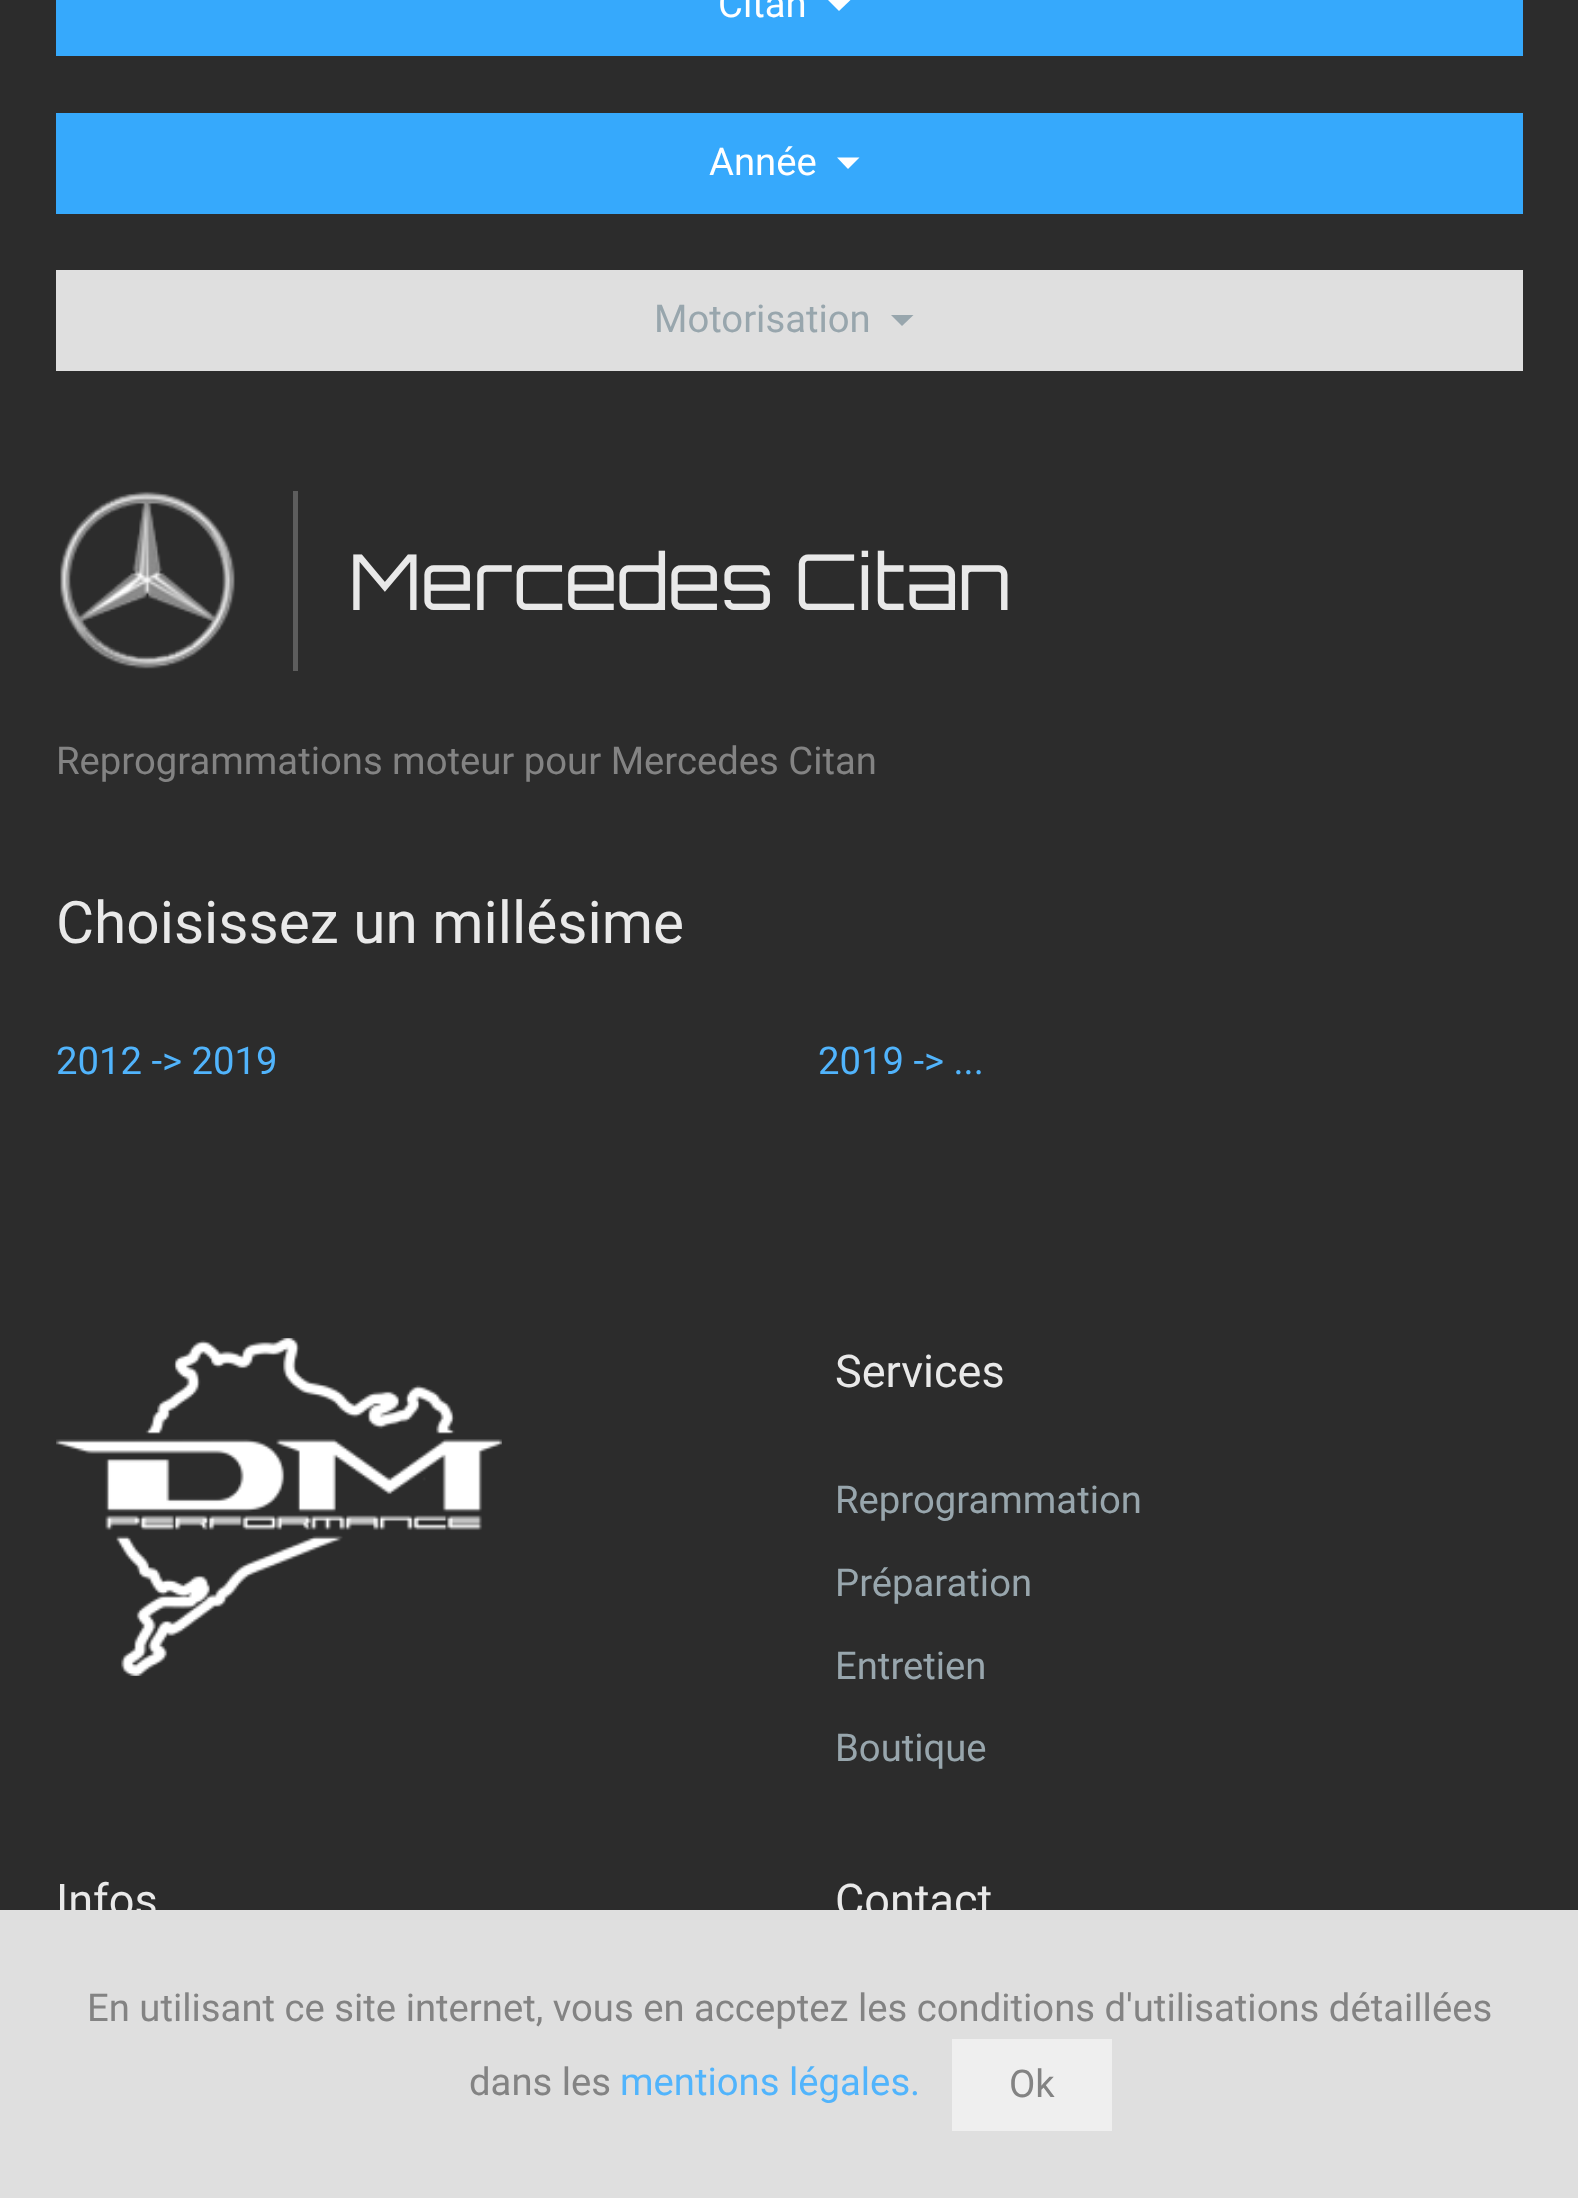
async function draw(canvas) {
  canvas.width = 1578;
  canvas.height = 2198;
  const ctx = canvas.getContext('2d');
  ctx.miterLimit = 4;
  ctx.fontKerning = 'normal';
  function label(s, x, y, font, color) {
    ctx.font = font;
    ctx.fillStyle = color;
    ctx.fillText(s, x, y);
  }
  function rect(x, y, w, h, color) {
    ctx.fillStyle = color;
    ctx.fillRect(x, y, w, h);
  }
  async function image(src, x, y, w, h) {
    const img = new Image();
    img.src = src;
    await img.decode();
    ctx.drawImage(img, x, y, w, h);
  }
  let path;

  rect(0, 0, 1578, 2198, '#2c2c2c');
  rect(56, 0, 1467, 56, '#36a9fc');
  label('Citan', 718, 17, '38.25px Roboto', '#fff');
  path = new Path2D('M828 0H850.5L839 11Z');
  ctx.fill(path);
  rect(56, 113, 1467, 101, '#36a9fc');
  label('Année', 709, 175, '38.25px Roboto', '#fff');
  path = new Path2D('M837 157.5H859.5L848 169Z');
  ctx.fill(path);
  rect(56, 270, 1467, 101, '#dfdfdf');
  label('Motorisation', 654, 332, '38.25px Roboto', '#98a6ad');
  path = new Path2D('M891 315H913.5L902 326Z');
  ctx.fill(path);
  await image('assets/img1.png', 60, 491, 175, 178);
  rect(293, 491, 5, 180, '#5d5d5d');
  label('Mercedes Citan', 349, 610, '77px Orbitron', '#e9e9e9');
  label('Reprogrammations moteur pour Mercedes Citan', 56, 774, '38.25px Roboto', '#838383');
  label('Choisissez un millésime', 56, 943, '58.5px Roboto', '#e9e9e9');
  label('2012 -> 2019', 56, 1074, '38.25px Roboto', '#51b4fc');
  label('2019 -> ...', 818, 1074, '38.25px Roboto', '#51b4fc');
  await image('assets/img2.png', 56, 1338, 446, 338);
  label('Services', 835, 1387, '45px Roboto', '#e9e9e9');
  label('Reprogrammation', 835, 1513, '38.25px Roboto', '#98a6ad');
  label('Préparation', 835, 1596, '38.25px Roboto', '#98a6ad');
  label('Entretien', 835, 1679, '38.25px Roboto', '#98a6ad');
  label('Boutique', 835, 1761, '38.25px Roboto', '#98a6ad');
  label('Infos', 56, 1916, '45px Roboto', '#e9e9e9');
  label('Contact', 835, 1916, '45px Roboto', '#e9e9e9');
  rect(0, 1910, 1578, 288, '#dfdfdf');
  label('En utilisant ce site internet, vous en acceptez les conditions d\'utilisations détaillées', 87, 2021, '38.25px Roboto', '#838383');
  label('dans les', 469, 2095, '38.25px Roboto', '#838383');
  label('mentions légales.', 620, 2095, '38.25px Roboto', '#51b4fc');
  rect(952, 2039, 160, 92, '#efefef');
  label('Ok', 1009, 2097, '38.25px Roboto', '#838383');
}

draw(document.querySelector('canvas'));
